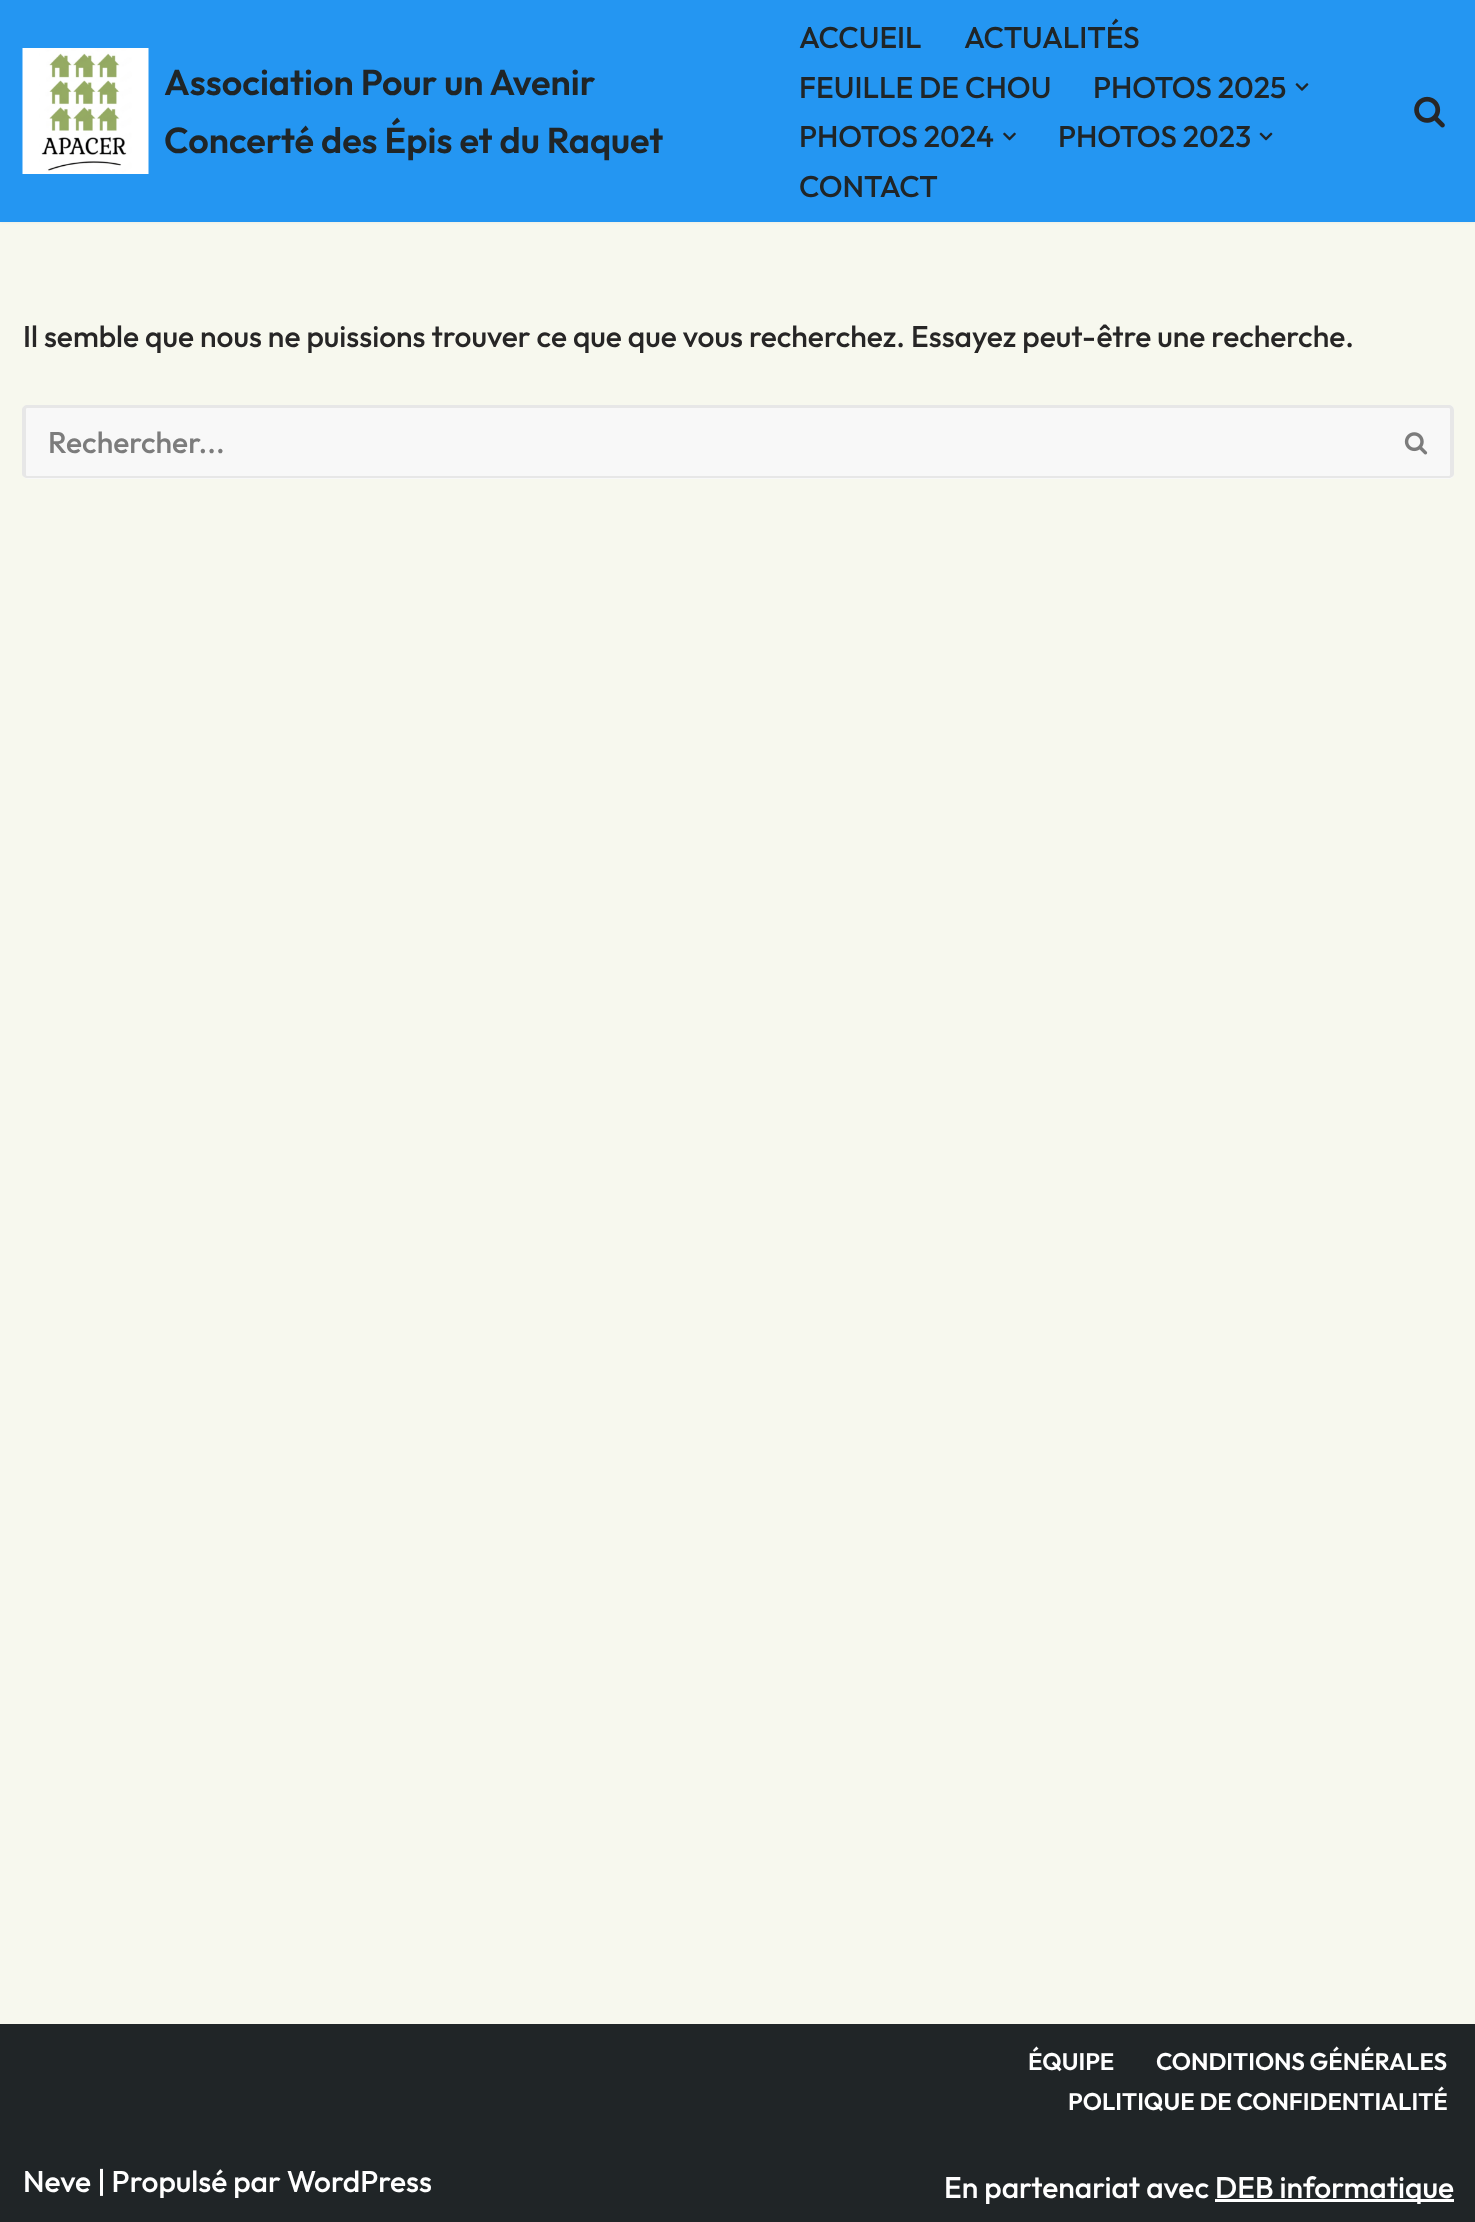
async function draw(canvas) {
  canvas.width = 1475;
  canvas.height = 2222;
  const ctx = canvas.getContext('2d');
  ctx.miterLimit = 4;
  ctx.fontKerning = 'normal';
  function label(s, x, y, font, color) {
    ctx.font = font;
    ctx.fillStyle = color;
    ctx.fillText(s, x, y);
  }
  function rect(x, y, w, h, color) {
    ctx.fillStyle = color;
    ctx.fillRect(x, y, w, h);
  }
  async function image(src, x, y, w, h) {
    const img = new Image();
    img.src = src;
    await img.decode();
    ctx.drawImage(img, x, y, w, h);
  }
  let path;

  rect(0, 0, 1475, 2222, '#f7f8ee');
  ctx.fillStyle = '#0000001a';
  ctx.filter = 'blur(2px)';
  ctx.beginPath();
  ctx.rect(0, -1, 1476, 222);
  ctx.fill();
  ctx.filter = 'none';
  rect(0, 0, 1475, 222, '#2496f2');
  await image('assets/img1.png', 22, 48, 127, 126);
  label('Association Pour un Avenir', 164, 95, '600 36px Outfit', '#202527');
  label('Concerté des Épis et du Raquet', 164, 153, '600 36px Outfit', '#202527');
  label('ACCUEIL', 799, 48, '500 30px Outfit', '#202527');
  label('ACTUALITÉS', 964, 48, '500 30px Outfit', '#202527');
  label('FEUILLE DE CHOU', 799, 98, '500 30px Outfit', '#202527');
  label('PHOTOS 2025', 1093, 98, '500 30px Outfit', '#202527');
  await image('assets/img2.png', 1295, 83, 14, 8);
  label('PHOTOS 2024', 799, 147, '500 30px Outfit', '#202527');
  await image('assets/img3.png', 1003, 132, 13, 9);
  label('PHOTOS 2023', 1058, 147, '500 30px Outfit', '#202527');
  await image('assets/img4.png', 1259, 132, 14, 9);
  label('CONTACT', 799, 197, '500 30px Outfit', '#202527');
  await image('assets/img5.png', 1414, 96, 31, 32);
  label('Il semble que nous ne puissions trouver ce que que vous recherchez. Essayez peut-être une recherche.', 23, 347, '500 30px Outfit', '#272626');
  ctx.fillStyle = '#f8f8f8';
  ctx.beginPath();
  ctx.roundRect(23, 405, 1359, 74, [5, 0, 0, 5]);
  ctx.fill();
  ctx.fillStyle = '#e7e7e7';
  path = new Path2D('M27 405H1382V478H27C25 478 22 476 22 474V410C22 407 25 405 27 405ZM27 408H1382V476H27C26 476 26 475 26 474V410C26 409 26 408 27 408Z');
  ctx.fill(path, 'evenodd');
  label('Rechercher...', 48, 453, '500 30px Outfit', '#7c7c7c');
  ctx.fillStyle = '#f8f8f8';
  ctx.beginPath();
  ctx.roundRect(1382, 405, 72, 74, [0, 5, 5, 0]);
  ctx.fill();
  ctx.fillStyle = '#e7e7e7';
  path = new Path2D('M1382 405H1449C1451 405 1454 407 1454 410V474C1454 476 1451 478 1449 478H1382ZM1382 408H1449C1450 408 1450 409 1450 410V474C1450 475 1450 476 1449 476H1382Z');
  ctx.fill(path, 'evenodd');
  await image('assets/img6.png', 1404, 432, 24, 23);
  rect(0, 2024, 1475, 198, '#202527');
  label('ÉQUIPE', 1028, 2070, '600 24px Outfit', '#fff');
  label('CONDITIONS GÉNÉRALES', 1156, 2070, '600 24px Outfit', '#fff');
  label('POLITIQUE DE CONFIDENTIALITÉ', 1068, 2110, '600 24px Outfit', '#fff');
  label('Neve | Propulsé par WordPress', 23, 2192, '500 30px Outfit', '#fff');
  label('En partenariat avec', 944, 2198, '500 30px Outfit', '#fff');
  rect(1215, 2199, 239, 3, '#fff');
  label('DEB informatique', 1215, 2198, '500 30px Outfit', '#fff');
}

draw(document.querySelector('canvas'));
